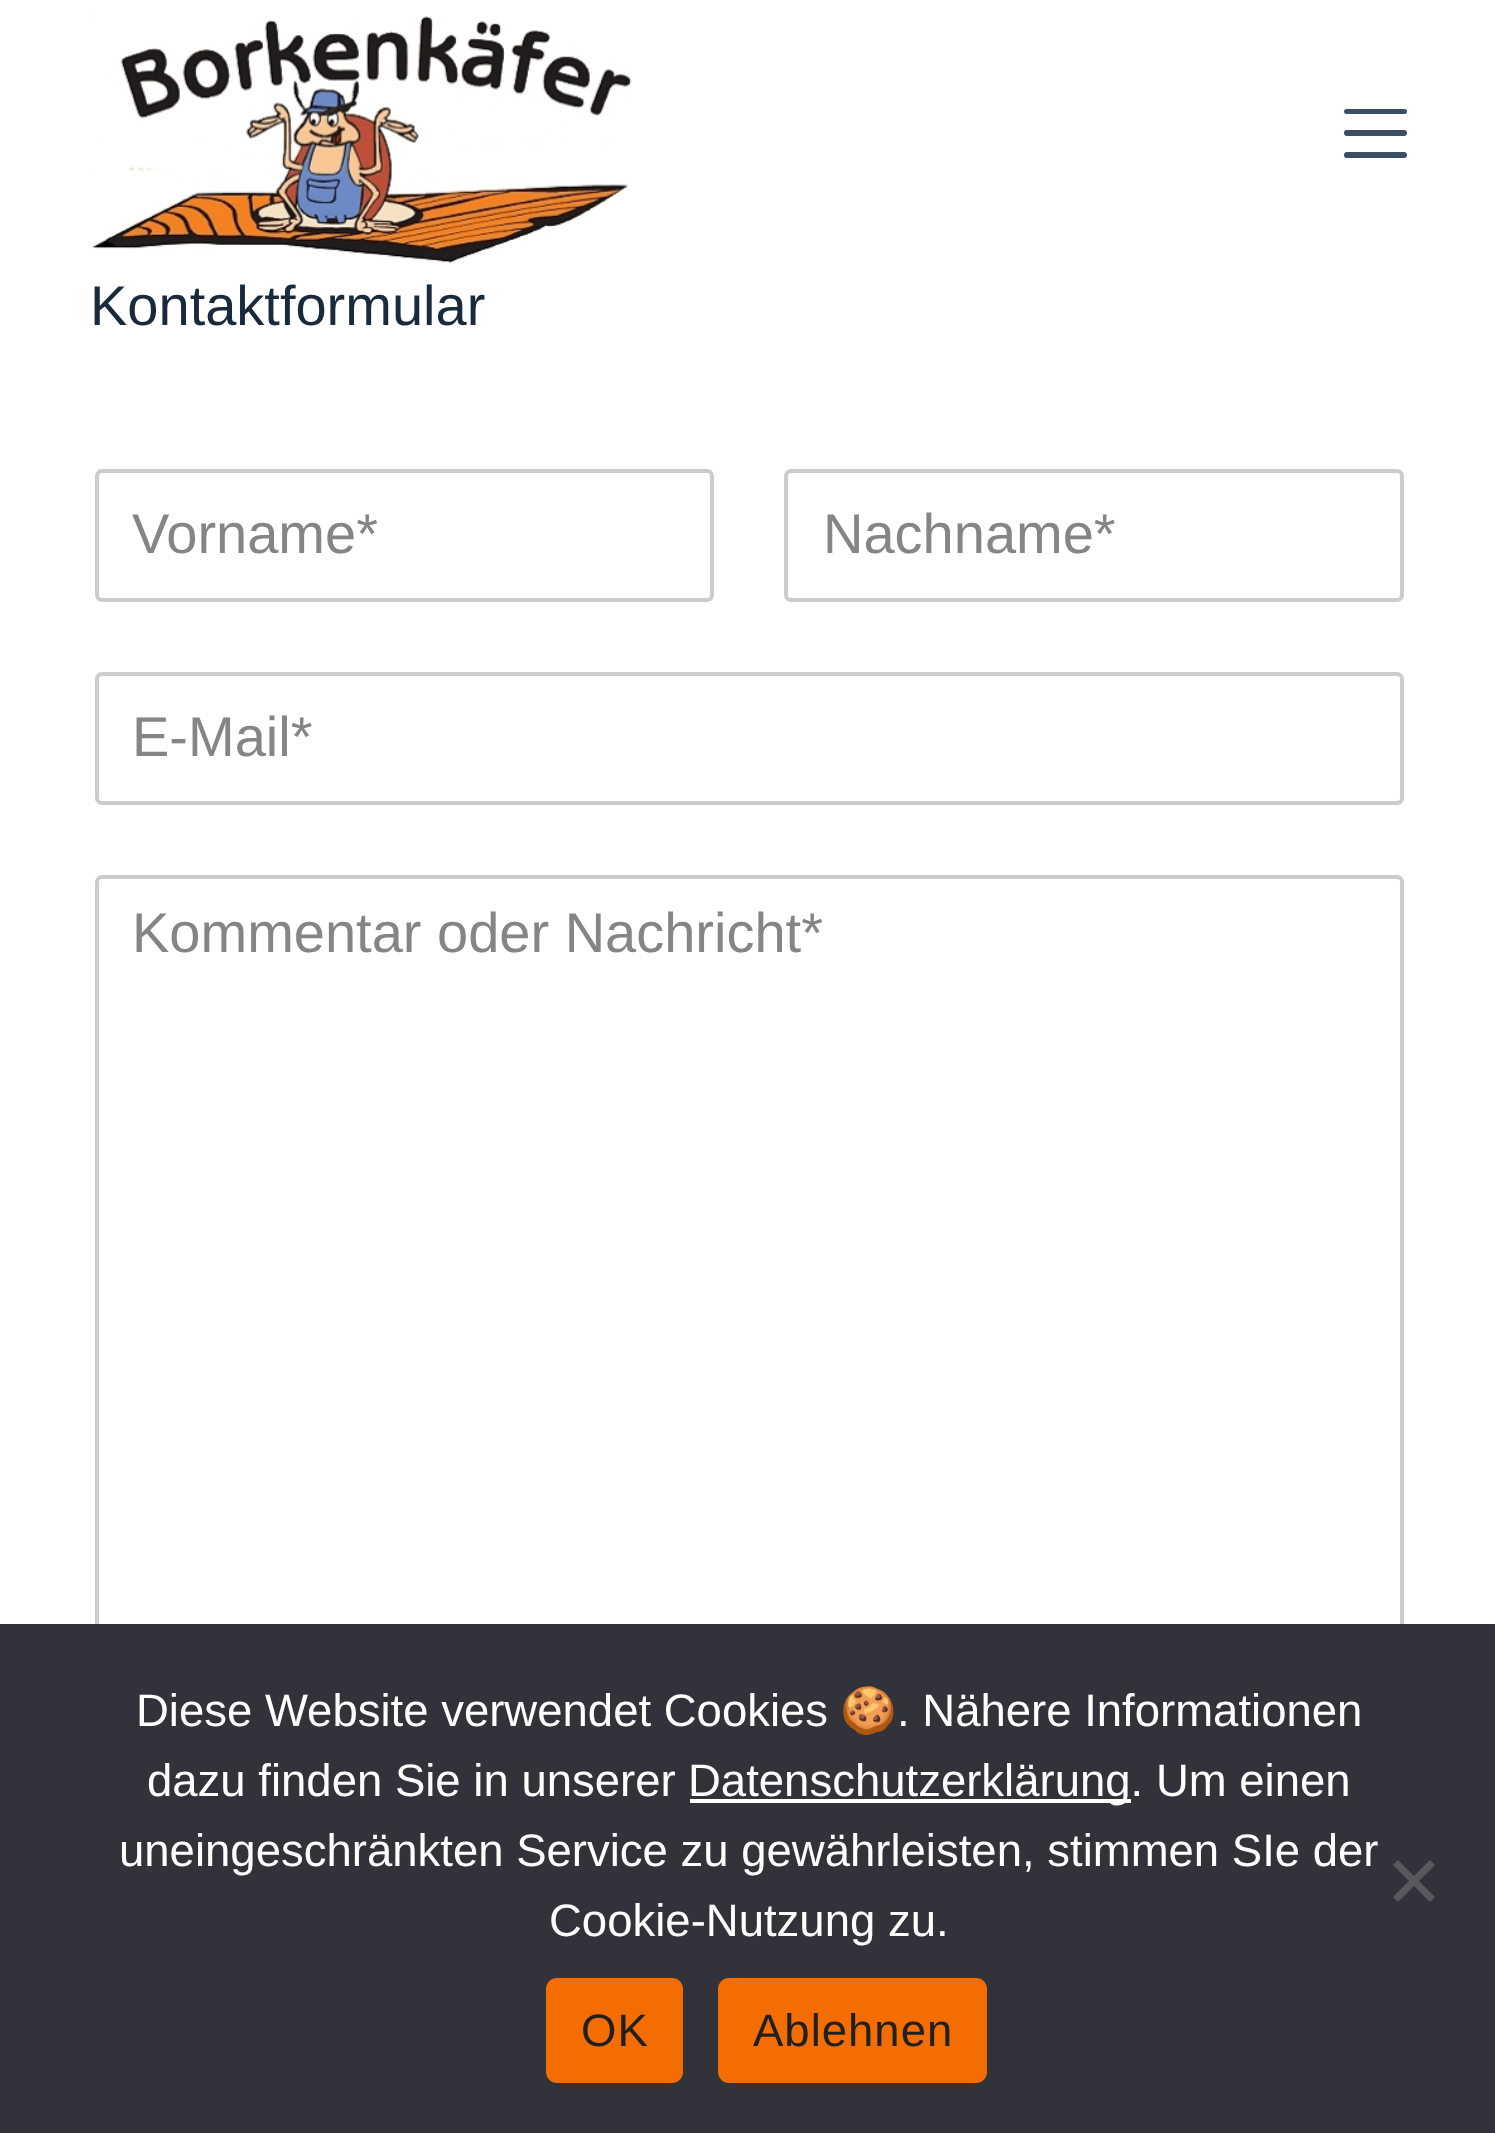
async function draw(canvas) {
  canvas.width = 1495;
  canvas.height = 2133;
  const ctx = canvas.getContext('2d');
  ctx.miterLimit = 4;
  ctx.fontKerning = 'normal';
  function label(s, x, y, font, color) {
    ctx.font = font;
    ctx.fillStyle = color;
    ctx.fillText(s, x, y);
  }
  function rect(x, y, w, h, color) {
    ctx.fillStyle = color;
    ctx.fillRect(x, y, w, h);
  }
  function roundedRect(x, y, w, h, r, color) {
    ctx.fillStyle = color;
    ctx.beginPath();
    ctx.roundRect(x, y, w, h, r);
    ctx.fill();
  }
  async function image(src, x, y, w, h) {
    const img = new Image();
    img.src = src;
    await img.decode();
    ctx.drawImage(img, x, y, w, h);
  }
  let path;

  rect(0, 0, 1495, 2133, '#fff');
  await image('assets/img1.png', 91, 13, 541, 250);
  roundedRect(1344, 109, 63, 5, 2.5, '#3a4f66');
  roundedRect(1344, 130, 63, 6, 3, '#3a4f66');
  roundedRect(1344, 152, 63, 6, 3, '#3a4f66');
  label('Kontaktformular', 90, 325, '56px Liberation Sans', '#192a3d');
  ctx.beginPath();
  ctx.roundRect(97, 471, 615, 129, 5);
  ctx.strokeStyle = '#ccc';
  ctx.lineWidth = 4;
  ctx.stroke();
  label('Vorname*', 132, 553, '56px Liberation Sans', '#858585');
  ctx.beginPath();
  ctx.roundRect(786, 471, 616, 129, 5);
  ctx.stroke();
  label('Nachname*', 823, 553, '56px Liberation Sans', '#858585');
  ctx.beginPath();
  ctx.roundRect(97, 674, 1305, 129, 5);
  ctx.stroke();
  label('E-Mail*', 132, 756, '56px Liberation Sans', '#858585');
  ctx.beginPath();
  ctx.roundRect(97, 877, 1305, 766, 5);
  ctx.stroke();
  label('Kommentar oder Nachricht*', 132, 952, '56px Liberation Sans', '#858585');
  rect(0, 1624, 1495, 509, '#32323a');
  label('Diese Website verwendet Cookies', 136, 1726, '45.5px Liberation Sans', '#fff');
  label('🍪', 840, 1726, '45.5px Noto Color Emoji', '#fff');
  label('. Nähere Informationen', 897, 1726, '45.5px Liberation Sans', '#fff');
  label('dazu finden Sie in unserer', 147, 1796, '45.5px Liberation Sans', '#fff');
  rect(690, 1799, 441, 4, '#fff');
  label('Datenschutzerklärung. Um einen', 688, 1796, '45.5px Liberation Sans', '#fff');
  label('uneingeschränkten Service zu gewährleisten, stimmen SIe der', 119, 1866, '45.5px Liberation Sans', '#fff');
  label('Cookie-Nutzung zu.', 549, 1936, '45.5px Liberation Sans', '#fff');
  ctx.fillStyle = '#59595d';
  path = new Path2D('M1430 1860L1435 1865L1398 1902L1393 1897Z');
  ctx.fill(path);
  path = new Path2D('M1393 1865L1398 1860L1435 1897L1430 1902Z');
  ctx.fill(path);
  roundedRect(546, 1978, 137, 105, 11, '#f46d00');
  ctx.letterSpacing = '1px';
  label('OK', 581, 2046, '45.5px Liberation Sans', '#202020');
  roundedRect(718, 1978, 269, 105, 11, '#f46d00');
  label('Ablehnen', 753, 2046, '45.5px Liberation Sans', '#202020');
}

draw(document.querySelector('canvas'));
